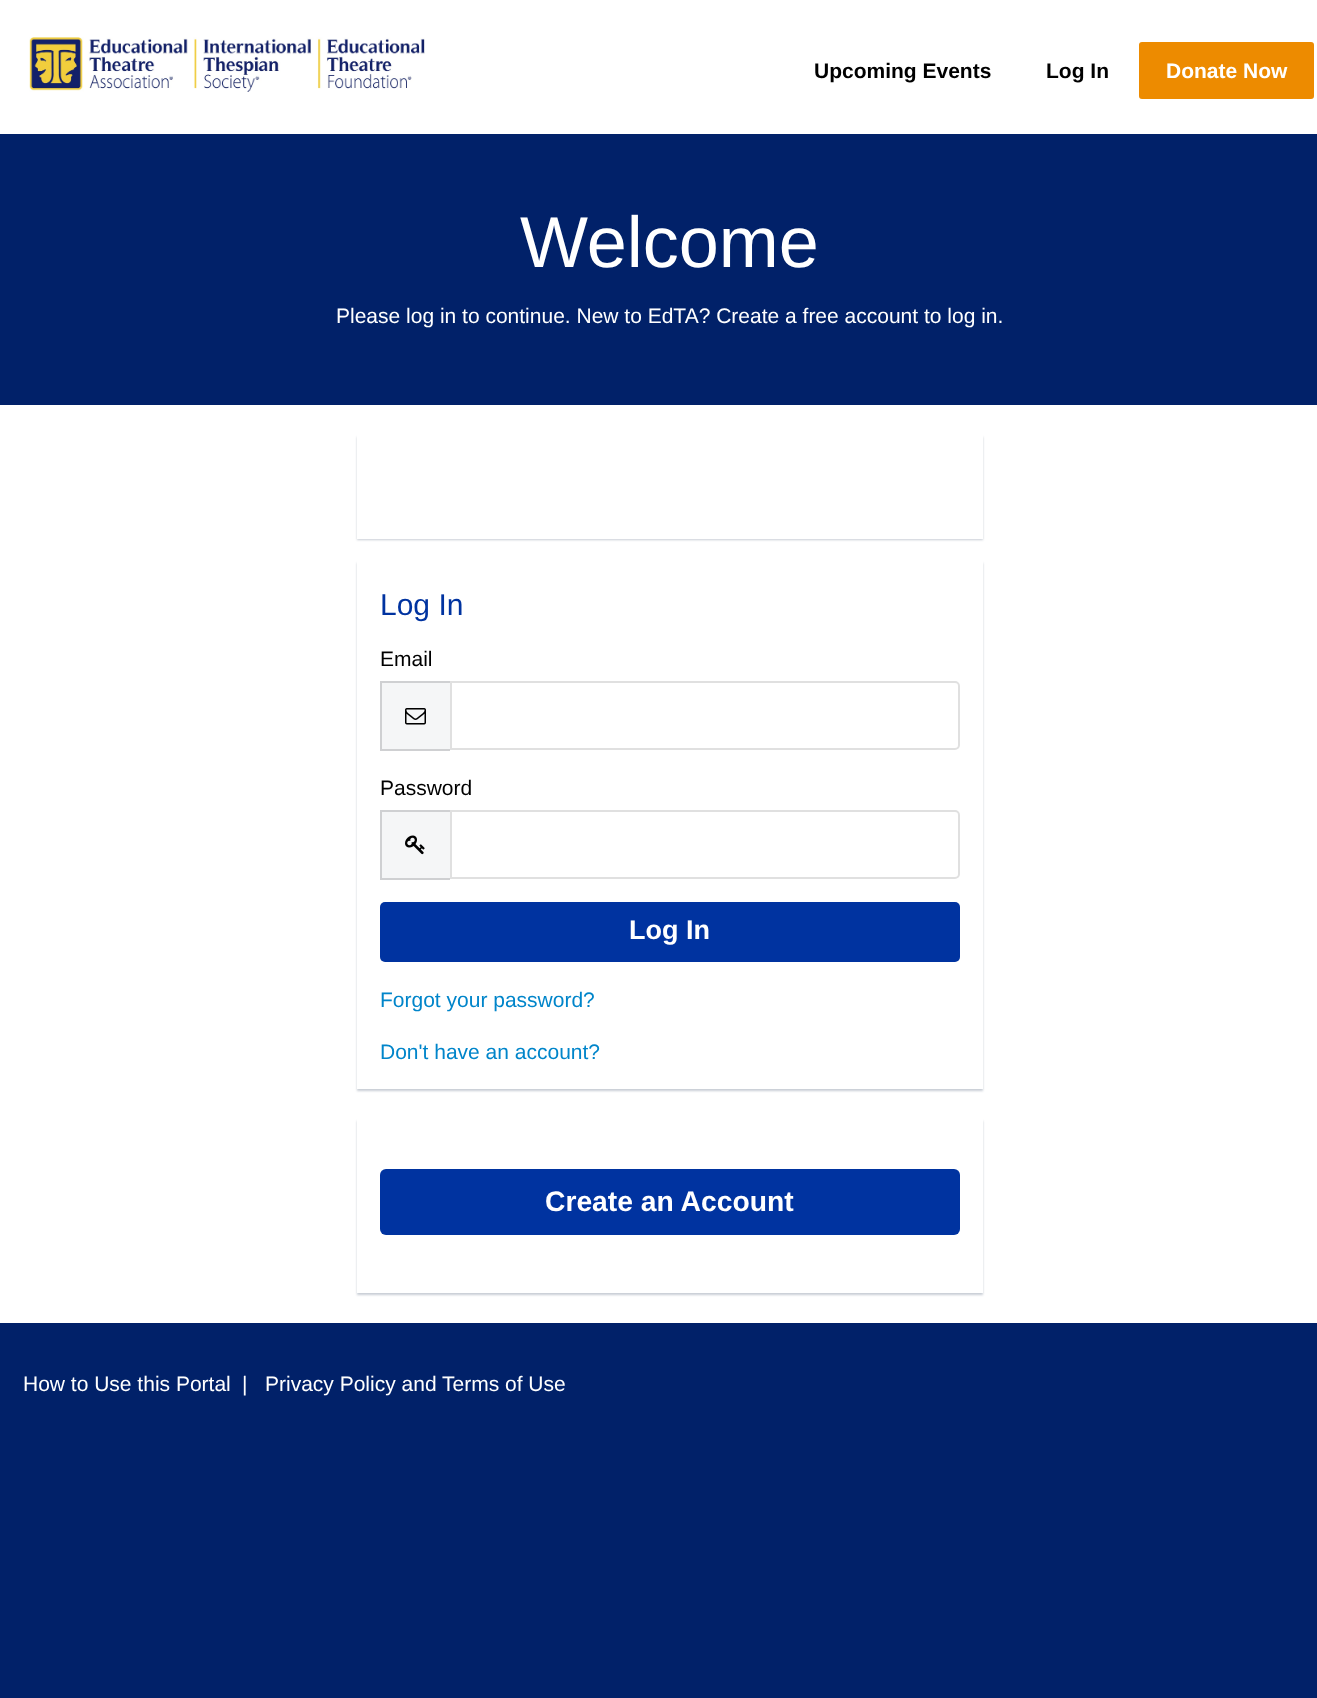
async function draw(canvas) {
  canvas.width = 1317;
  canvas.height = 1698;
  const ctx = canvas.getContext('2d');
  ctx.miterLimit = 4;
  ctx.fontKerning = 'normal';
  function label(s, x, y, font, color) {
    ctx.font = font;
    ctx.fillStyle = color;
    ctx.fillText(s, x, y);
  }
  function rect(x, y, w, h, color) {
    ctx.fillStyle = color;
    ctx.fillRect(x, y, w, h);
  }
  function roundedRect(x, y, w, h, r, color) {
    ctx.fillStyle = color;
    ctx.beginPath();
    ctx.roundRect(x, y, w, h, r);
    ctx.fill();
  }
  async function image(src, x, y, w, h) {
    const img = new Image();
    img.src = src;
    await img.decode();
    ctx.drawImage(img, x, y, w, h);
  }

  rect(0, 0, 1317, 1698, '#012169');
  rect(0, 0, 1317, 1323, '#fff');
  await image('assets/img1.png', 29, 37, 396, 55);
  label('Upcoming Events', 814, 78, 'bold 21px Liberation Sans', '#000');
  label('Log In', 1046, 78, 'bold 21px Liberation Sans', '#000');
  ctx.fillStyle = '#ed8b00';
  ctx.beginPath();
  ctx.roundRect(1137.5, 40.5, 178, 60, 4.5);
  ctx.fill();
  ctx.strokeStyle = '#fff';
  ctx.lineWidth = 3;
  ctx.stroke();
  label('Donate Now', 1166, 78, 'bold 21px Liberation Sans', '#fff');
  rect(0, 134, 1317, 271, '#012169');
  label('Welcome', 520, 267, '72px Liberation Sans', '#fff');
  label('Please log in to continue. New to EdTA? Create a free account to log in.', 336, 323, '21px Liberation Sans', '#fff');
  ctx.fillStyle = '#25385840';
  ctx.filter = 'blur(1px)';
  ctx.beginPath();
  ctx.rect(357, 437, 626, 103);
  ctx.fill();
  ctx.filter = 'none';
  rect(357, 435, 626, 104, '#fff');
  ctx.fillStyle = '#25385840';
  ctx.filter = 'blur(1px)';
  ctx.beginPath();
  ctx.rect(357, 563, 626, 528);
  ctx.fill();
  ctx.filter = 'none';
  rect(357, 561, 626, 528, '#fff');
  label('Log In', 380, 615, '30px Liberation Sans', '#0033a0');
  label('Email', 380, 666, '21px Liberation Sans', '#000');
  rect(382, 683, 68, 66, '#f5f6f7');
  rect(380, 681, 70, 2, '#cfd0d2');
  rect(380, 749, 70, 2, '#cfd0d2');
  rect(380, 681, 2, 69, '#cfd0d2');
  await image('assets/img2.png', 405, 708, 21, 17);
  ctx.beginPath();
  ctx.roundRect(451, 682, 508, 67, [0, 4, 4, 0]);
  ctx.strokeStyle = '#e0e0e0';
  ctx.lineWidth = 2;
  ctx.stroke();
  label('Password', 380, 795, '21px Liberation Sans', '#000');
  rect(382, 812, 68, 66, '#f5f6f7');
  rect(380, 810, 70, 2, '#cfd0d2');
  rect(380, 878, 70, 2, '#cfd0d2');
  rect(380, 810, 2, 69, '#cfd0d2');
  await image('assets/img3.png', 405, 835, 20, 20);
  ctx.beginPath();
  ctx.roundRect(451, 811, 508, 67, [0, 4, 4, 0]);
  ctx.stroke();
  roundedRect(380, 902, 580, 60, 5, '#0033a0');
  label('Log In', 629, 939, 'bold 27px Liberation Sans', '#fff');
  label('Forgot your password?', 380, 1007, '21px Liberation Sans', '#0085ca');
  label('Don\'t have an account?', 380, 1059, '21px Liberation Sans', '#0085ca');
  ctx.fillStyle = '#25385840';
  ctx.filter = 'blur(1px)';
  ctx.beginPath();
  ctx.rect(357, 1121, 626, 174);
  ctx.fill();
  ctx.filter = 'none';
  rect(357, 1119, 626, 174, '#fff');
  roundedRect(380, 1169, 580, 66, 6, '#0033a0');
  label('Create an Account', 545, 1211, 'bold 28.25px Liberation Sans', '#fff');
  label('How to Use this Portal', 23, 1391, '21px Liberation Sans', '#fff');
  label('|', 242, 1391, '21px Liberation Sans', '#fff');
  label('Privacy Policy and Terms of Use', 265, 1391, '21px Liberation Sans', '#fff');
}

draw(document.querySelector('canvas'));
